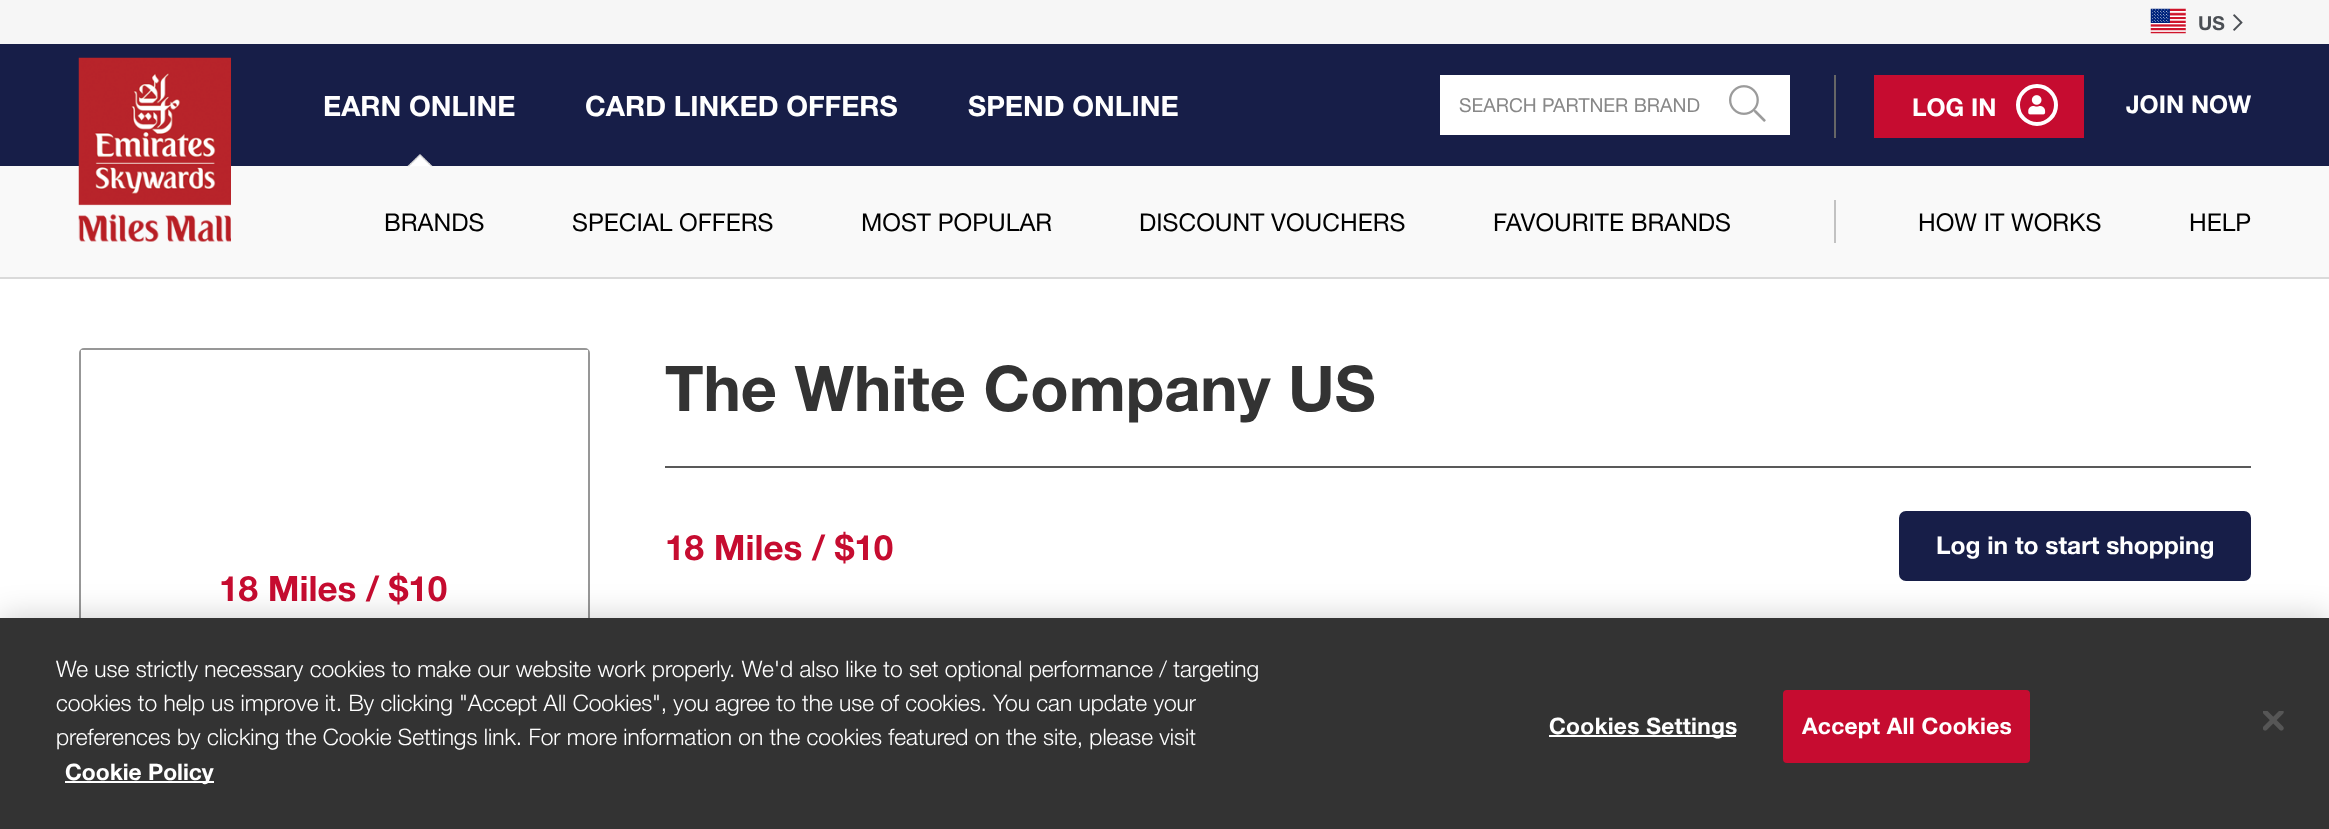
async function draw(canvas) {
  canvas.width = 2329;
  canvas.height = 829;
  const ctx = canvas.getContext('2d');
  ctx.miterLimit = 4;
  ctx.fontKerning = 'normal';
  function label(s, x, y, font, color) {
    ctx.font = font;
    ctx.fillStyle = color;
    ctx.fillText(s, x, y);
  }
  function rect(x, y, w, h, color) {
    ctx.fillStyle = color;
    ctx.fillRect(x, y, w, h);
  }
  async function image(src, x, y, w, h) {
    const img = new Image();
    img.src = src;
    await img.decode();
    ctx.drawImage(img, x, y, w, h);
  }

  rect(0, 0, 2329, 829, '#fff');
  rect(0, 0, 2329, 44, '#f6f6f6');
  await image('assets/img1.png', 2150, 8, 36, 26);
  label('US', 2198, 30, 'bold 19.25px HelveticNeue', '#4b4f54');
  await image('assets/img2.png', 2233, 14, 10, 17);
  rect(0, 44, 2329, 122, '#171e48');
  rect(0, 166, 2329, 111, '#f9f9f9');
  await image('assets/img3.png', 78, 57, 153, 185);
  label('EARN ONLINE', 323, 116, 'bold 28px HelveticNeue', '#fff');
  await image('assets/img4.png', 407, 154, 26, 13);
  label('CARD LINKED OFFERS', 585, 116, 'bold 28px HelveticNeue', '#fff');
  label('SPEND ONLINE', 968, 116, 'bold 28px HelveticNeue', '#fff');
  rect(1440, 75, 350, 60, '#fff');
  label('SEARCH PARTNER BRAND', 1459, 112, '19.25px HelveticNeue', '#888');
  await image('assets/img5.png', 1729, 85, 37, 37);
  rect(1834, 75, 2, 63, '#666');
  rect(1874, 75, 210, 63, '#c60c30');
  label('LOG IN', 1912, 116, 'bold 24.5px HelveticNeue', '#fff');
  ctx.beginPath();
  ctx.arc(2037, 105, 19, 0, 2 * Math.PI);
  ctx.strokeStyle = '#fff';
  ctx.lineWidth = 4;
  ctx.stroke();
  await image('assets/img6.png', 2028, 95, 18, 20);
  label('JOIN NOW', 2126, 113, 'bold 24.5px HelveticNeue', '#fff');
  rect(0, 277, 2329, 2, '#dadada');
  label('BRANDS', 384, 231, '24.5px HelveticNeue', '#000');
  label('SPECIAL OFFERS', 572, 231, '24.5px HelveticNeue', '#000');
  label('MOST POPULAR', 861, 231, '24.5px HelveticNeue', '#000');
  label('DISCOUNT VOUCHERS', 1139, 231, '24.5px HelveticNeue', '#000');
  label('FAVOURITE BRANDS', 1493, 231, '24.5px HelveticNeue', '#000');
  rect(1834, 200, 2, 43, '#c2c2c2');
  label('HOW IT WORKS', 1918, 231, '24.5px HelveticNeue', '#000');
  label('HELP', 2189, 231, '24.5px HelveticNeue', '#000');
  label('The White Company US', 665, 411, 'bold 63px HelveticNeue', '#333');
  rect(665, 466, 1586, 2, '#595959');
  label('18 Miles / $10', 665, 560, 'bold 35px HelveticNeue', '#c60c30');
  ctx.fillStyle = '#171e48';
  ctx.beginPath();
  ctx.roundRect(1900, 512, 350, 68, 6);
  ctx.fill();
  ctx.strokeStyle = '#171e48';
  ctx.lineWidth = 2;
  ctx.stroke();
  label('Log in to start shopping', 1936, 554, 'bold 24.5px HelveticNeue', '#fff');
  ctx.beginPath();
  ctx.roundRect(80, 349, 509, 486, 4);
  ctx.strokeStyle = '#979797';
  ctx.stroke();
  rect(81, 350, 507, 3, '#fff');
  label('18 Miles / $10', 219, 601, 'bold 35px HelveticNeue', '#c60c30');
  ctx.fillStyle = '#00000033';
  ctx.filter = 'blur(16px)';
  ctx.beginPath();
  ctx.rect(0, 618, 2329, 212);
  ctx.fill();
  ctx.filter = 'none';
  rect(0, 618, 2329, 211, '#333');
  label('We use strictly necessary cookies to make our website work properly. We\'d also like to set optional performance / targeting', 56, 677, '300 22.75px HelveticNeue', '#fff');
  label('cookies to help us improve it. By clicking "Accept All Cookies", you agree to the use of cookies. You can update your', 56, 711, '300 22.75px HelveticNeue', '#fff');
  label('preferences by clicking the Cookie Settings link. For more information on the cookies featured on the site, please visit', 56, 745, '300 22.75px HelveticNeue', '#fff');
  rect(65, 781, 149, 2, '#fff');
  label('Cookie Policy', 65, 780, 'bold 22.75px HelveticNeue', '#fff');
  rect(1549, 735, 187, 2, '#fff');
  ctx.letterSpacing = '0.25px';
  label('Cookies Settings', 1549, 734, 'bold 22.75px HelveticNeue', '#fff');
  ctx.fillStyle = '#c60c30';
  ctx.beginPath();
  ctx.roundRect(1784, 691, 245, 71, 3);
  ctx.fill();
  ctx.strokeStyle = '#c60c30';
  ctx.stroke();
  label('Accept All Cookies', 1802, 734, 'bold 22.75px HelveticNeue', '#fff');
  await image('assets/img7.png', 2263, 711, 21, 20);
}

draw(document.querySelector('canvas'));
